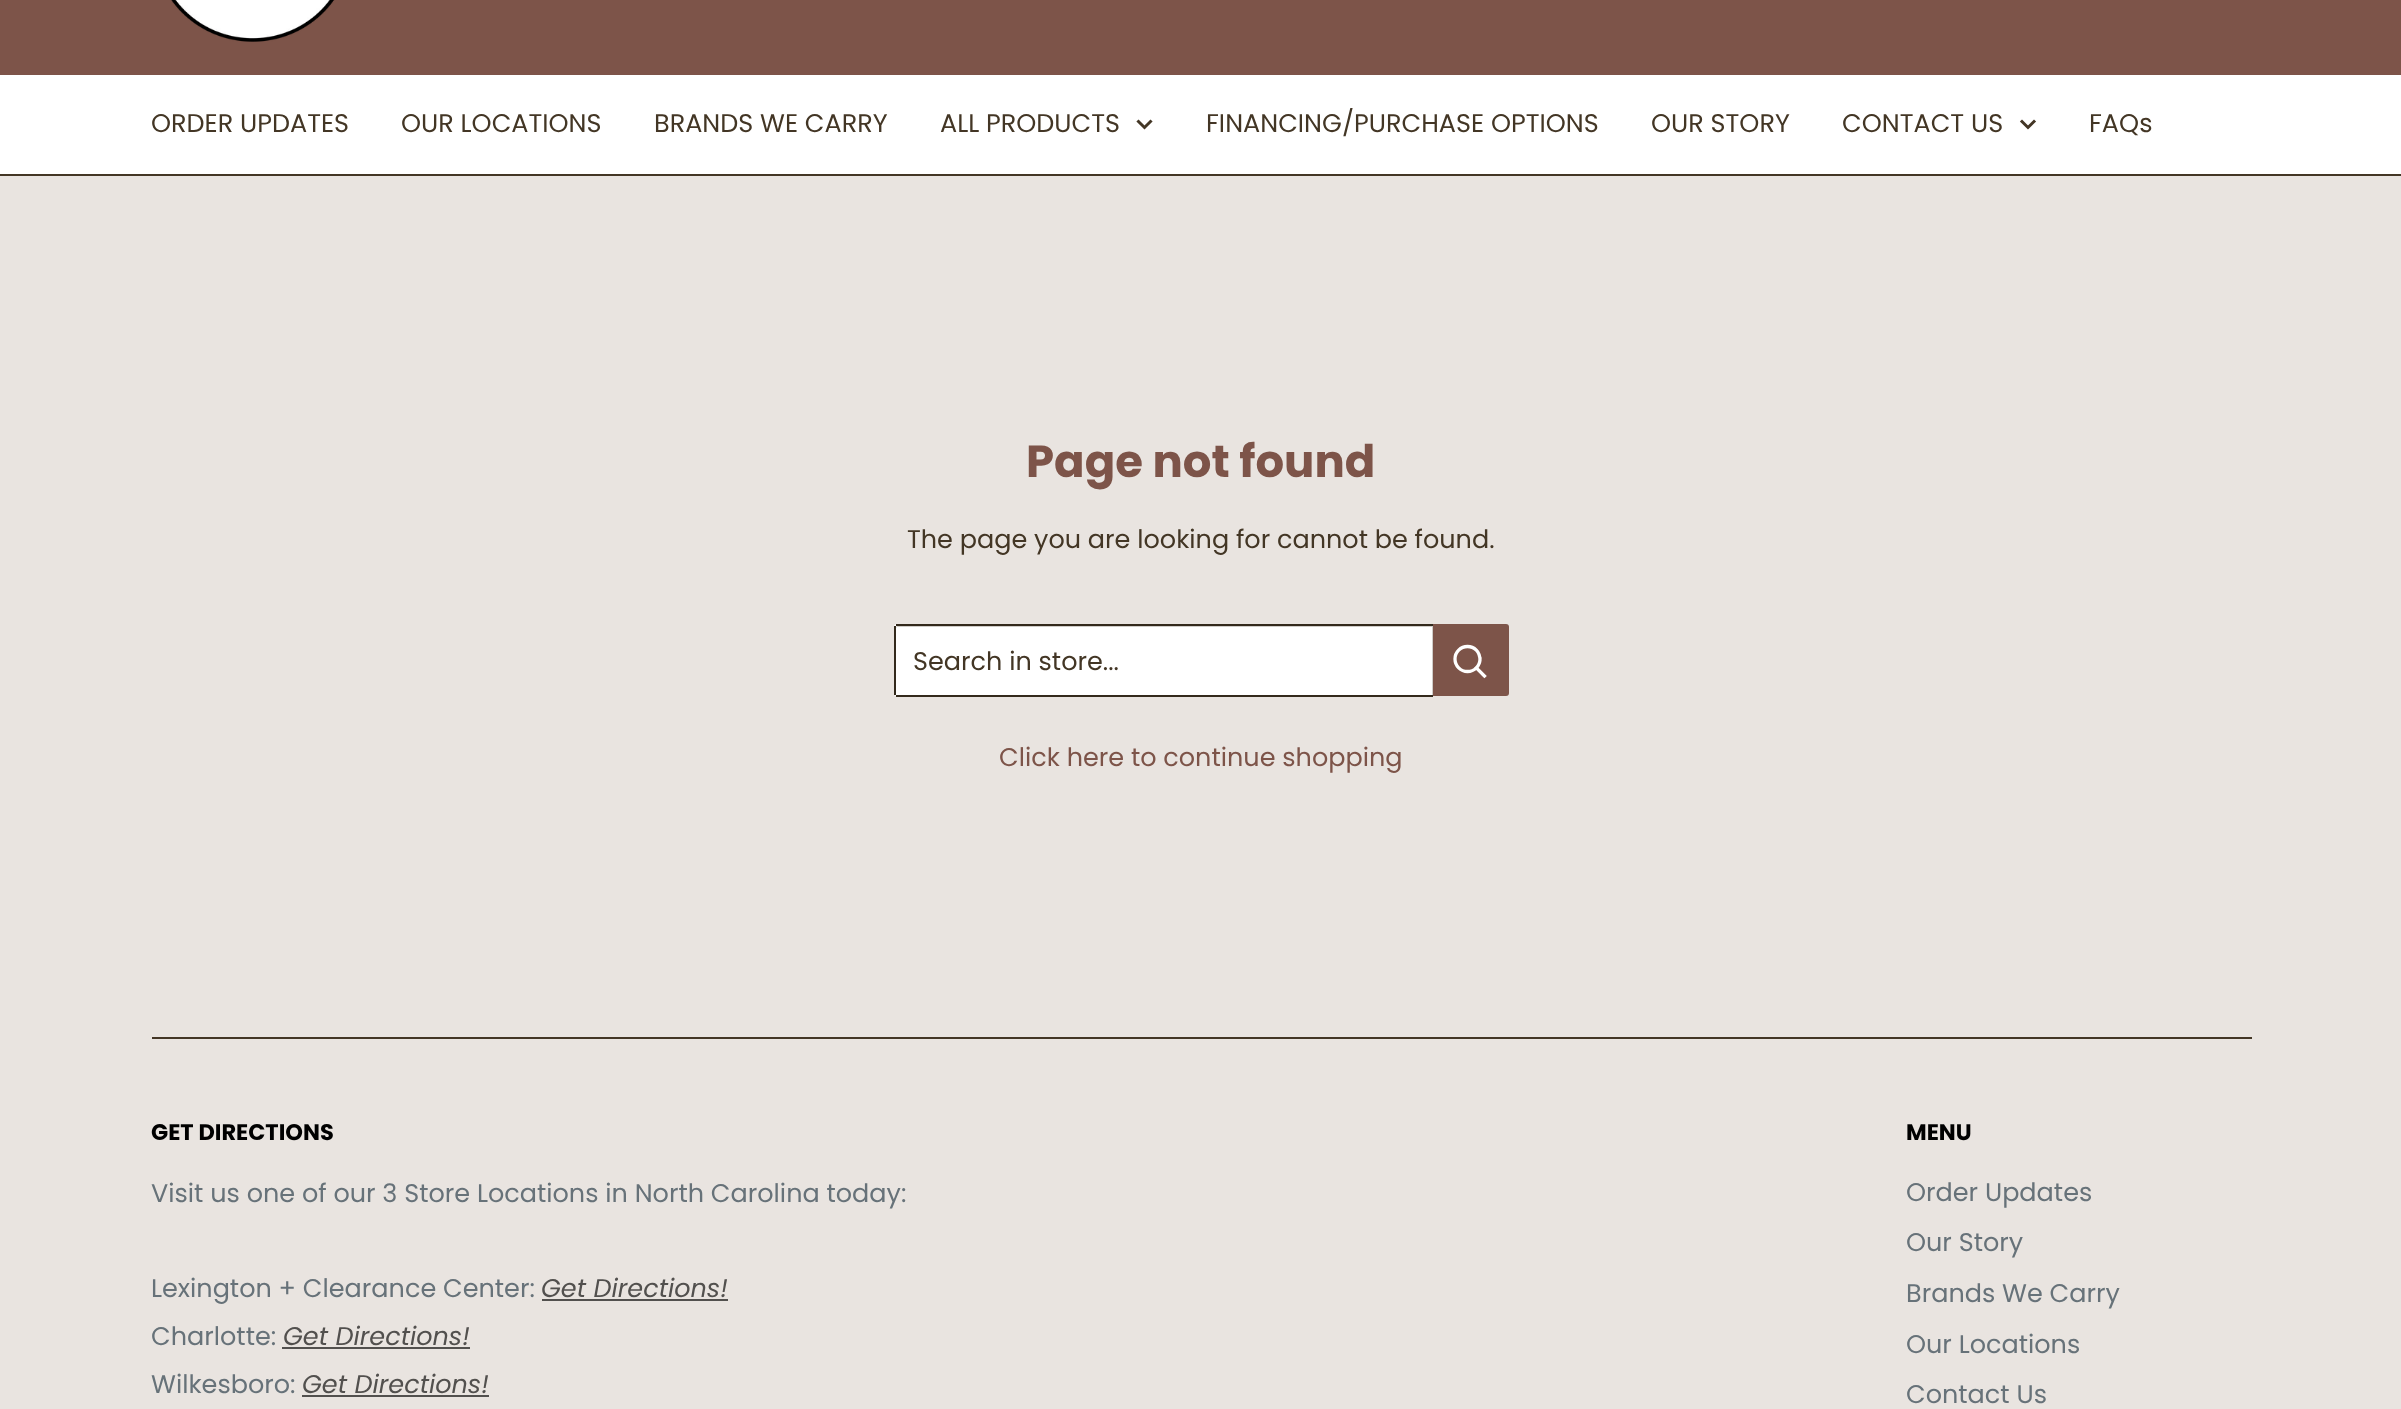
async function draw(canvas) {
  canvas.width = 2401;
  canvas.height = 1409;
  const ctx = canvas.getContext('2d');
  ctx.miterLimit = 4;
  ctx.fontKerning = 'normal';
  function label(s, x, y, font, color) {
    ctx.font = font;
    ctx.fillStyle = color;
    ctx.fillText(s, x, y);
  }
  function rect(x, y, w, h, color) {
    ctx.fillStyle = color;
    ctx.fillRect(x, y, w, h);
  }
  async function image(src, x, y, w, h) {
    const img = new Image();
    img.src = src;
    await img.decode();
    ctx.drawImage(img, x, y, w, h);
  }
  let path;

  rect(0, 0, 2401, 1409, '#e9e4e0');
  rect(0, 0, 2401, 75, '#7d5449');
  await image('assets/img1.png', 171, 0, 164, 42);
  rect(0, 75, 2401, 99, '#fff');
  rect(0, 174, 2401, 2, '#433625');
  label('ORDER UPDATES', 151, 132, '25.5px Poppins', '#433625');
  label('OUR LOCATIONS', 401, 132, '25.5px Poppins', '#433625');
  label('BRANDS WE CARRY', 654, 132, '25.5px Poppins', '#433625');
  label('ALL PRODUCTS', 940, 132, '25.5px Poppins', '#433625');
  path = new Path2D('M1150.5 121.5L1144.5 127.5L1138.5 121.5');
  ctx.strokeStyle = '#433625';
  ctx.lineWidth = 3;
  ctx.lineCap = 'square';
  ctx.stroke(path);
  label('FINANCING/PURCHASE OPTIONS', 1206, 132, '25.5px Poppins', '#433625');
  label('OUR STORY', 1651, 132, '25.5px Poppins', '#433625');
  label('CONTACT US', 1842, 132, '25.5px Poppins', '#433625');
  path = new Path2D('M2034 121.5L2028 127.5L2022 121.5');
  ctx.stroke(path);
  label('FAQs', 2089, 132, '25.5px Poppins', '#433625');
  label('Page not found', 1026, 477, 'bold 45px Poppins', '#7d5449');
  label('The page you are looking for cannot be found.', 907, 548, '25.5px Poppins', '#433625');
  ctx.fillStyle = '#fff';
  ctx.beginPath();
  ctx.roundRect(894, 624, 539, 72, [3, 0, 0, 3]);
  ctx.fill();
  ctx.fillStyle = '#d0cdc9';
  path = new Path2D('M897 627H1432V695H1433V626H898C896 626 896 627 896 628Z');
  ctx.fill(path);
  rect(896, 624, 537, 2, '#33291c');
  rect(896, 695, 537, 2, '#33291c');
  rect(894, 626, 2, 69, '#33291c');
  label('Search in store...', 913, 670, '25.5px Poppins', '#433625');
  ctx.fillStyle = '#7d5449';
  ctx.beginPath();
  ctx.roundRect(1433, 624, 76, 72, [0, 3, 3, 0]);
  ctx.fill();
  path = new Path2D('M1484.5 676L1476.5 668');
  ctx.strokeStyle = '#fff';
  ctx.lineWidth = 3.3;
  ctx.stroke(path);
  ctx.beginPath();
  ctx.arc(1467.5, 659, 12.5, 0, 2 * Math.PI);
  ctx.stroke();
  label('Click here to continue shopping', 999, 766, '25.5px Poppins', '#7d5449');
  rect(152, 1037, 2100, 2, '#433625');
  label('GET DIRECTIONS', 151, 1140, 'bold 22.5px Poppins', '#000');
  label('Visit us one of our 3 Store Locations in North Carolina today:', 151, 1202, '25.5px Poppins', '#677279');
  label('Lexington + Clearance Center:', 151, 1297, '25.5px Poppins', '#677279');
  label('Get Directions!', 541, 1297, 'italic 25.5px Poppins', '#52504e');
  rect(542, 1299, 186, 2, '#52504e');
  label('Charlotte:', 151, 1345, '25.5px Poppins', '#677279');
  label('Get Directions!', 283, 1345, 'italic 25.5px Poppins', '#52504e');
  rect(282, 1347, 188, 2, '#52504e');
  label('Wilkesboro:', 151, 1393, '25.5px Poppins', '#677279');
  label('Get Directions!', 302, 1393, 'italic 25.5px Poppins', '#52504e');
  rect(302, 1395, 187, 2, '#52504e');
  label('MENU', 1906, 1140, 'bold 22.5px Poppins', '#000');
  label('Order Updates', 1906, 1201, '25.5px Poppins', '#677279');
  label('Our Story', 1906, 1251, '25.5px Poppins', '#677279');
  label('Brands We Carry', 1906, 1302, '25.5px Poppins', '#677279');
  label('Our Locations', 1906, 1353, '25.5px Poppins', '#677279');
  label('Contact Us', 1906, 1403, '25.5px Poppins', '#677279');
}

draw(document.querySelector('canvas'));
